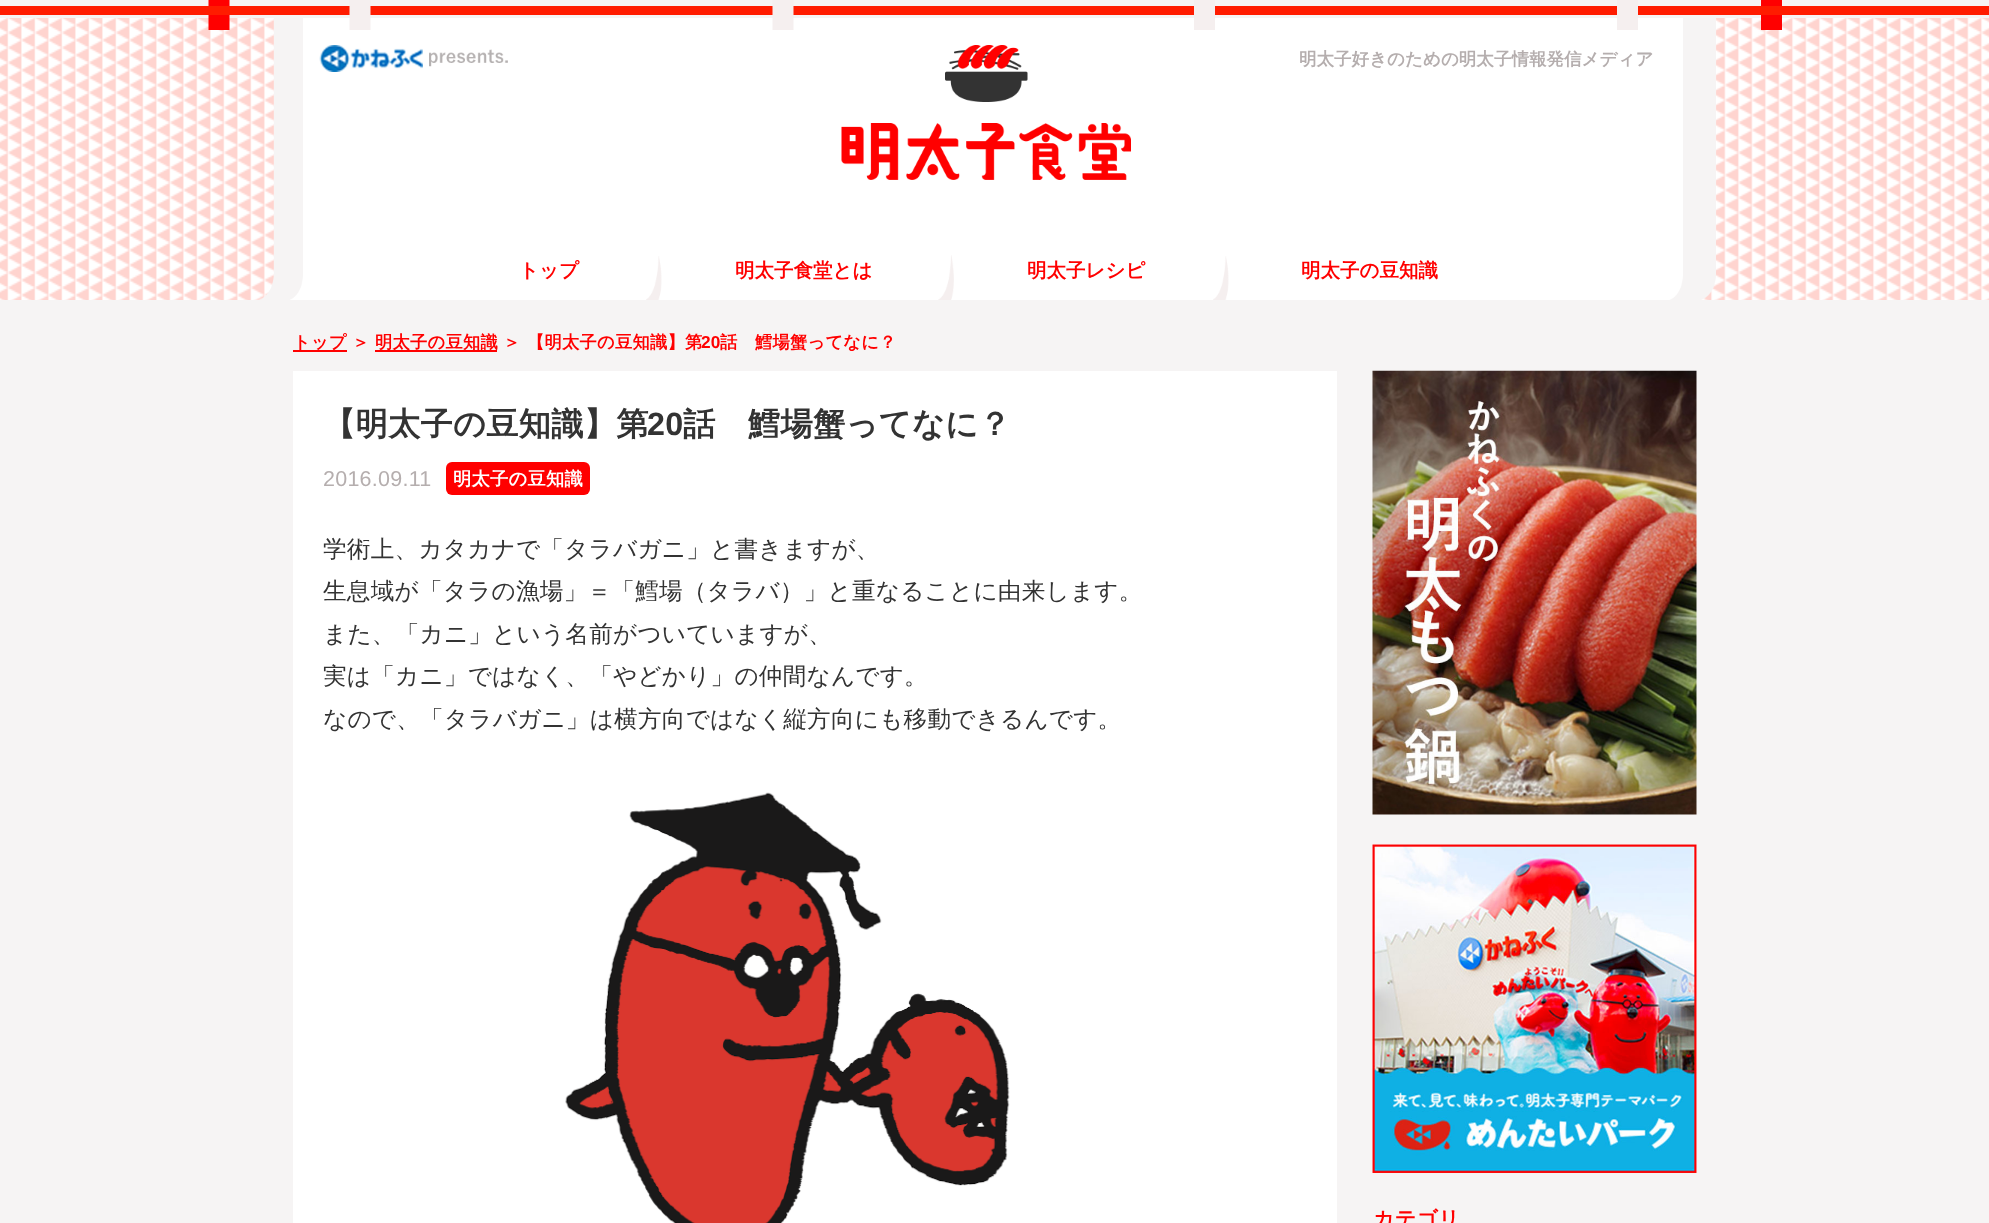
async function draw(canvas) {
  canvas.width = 1989;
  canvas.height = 1223;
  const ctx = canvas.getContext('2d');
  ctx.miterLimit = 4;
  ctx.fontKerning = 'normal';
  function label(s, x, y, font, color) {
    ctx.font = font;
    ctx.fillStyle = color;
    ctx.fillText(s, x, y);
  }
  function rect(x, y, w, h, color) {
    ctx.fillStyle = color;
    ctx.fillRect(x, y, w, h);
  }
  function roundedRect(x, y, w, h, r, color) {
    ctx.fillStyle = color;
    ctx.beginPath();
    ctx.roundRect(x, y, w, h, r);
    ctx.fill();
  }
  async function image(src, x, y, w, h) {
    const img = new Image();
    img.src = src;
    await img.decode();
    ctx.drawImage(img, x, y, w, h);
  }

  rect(0, 0, 1989, 1223, '#f6f4f4');
  await image('assets/img1.png', 0, 0, 1989, 300);
  await image('assets/img2.png', 290, 0, 1393, 300);
  await image('assets/img3.png', 319, 45, 189, 27);
  await image('assets/img4.png', 945, 45, 83, 57);
  label('明太子好きのための明太子情報発信メディア', 1299, 65, 'bold 17.55px WenQuanYi Zen Hei', '#b5aeae');
  await image('assets/img5.png', 841, 123, 290, 57);
  await image('assets/img6.png', 646, 256, 16, 44);
  label('トップ', 519, 277, 'bold 19.5px WenQuanYi Zen Hei', '#f00');
  await image('assets/img7.png', 938, 255, 16, 45);
  label('明太子食堂とは', 735, 277, 'bold 19.5px WenQuanYi Zen Hei', '#f00');
  await image('assets/img8.png', 1213, 256, 16, 44);
  label('明太子レシピ', 1027, 277, 'bold 19.5px WenQuanYi Zen Hei', '#f00');
  label('明太子の豆知識', 1301, 277, 'bold 19.5px WenQuanYi Zen Hei', '#f00');
  rect(293, 350, 54, 2, '#f00');
  ctx.letterSpacing = '0.25px';
  label('トップ', 293, 348, 'bold 17.25px WenQuanYi Zen Hei', '#f00');
  label('＞', 352, 348, 'bold 17.25px WenQuanYi Zen Hei', '#f00');
  rect(375, 350, 122, 2, '#f00');
  label('明太子の豆知識', 375, 348, 'bold 17.25px WenQuanYi Zen Hei', '#f00');
  label('＞', 503, 348, 'bold 17.25px WenQuanYi Zen Hei', '#f00');
  label('【明太子の豆知識】第', 527, 348, 'bold 17.25px WenQuanYi Zen Hei', '#f00');
  label('20', 701, 348, 'bold 17.25px Liberation Sans', '#f00');
  label('話　鱈場蟹ってなに？', 720, 348, 'bold 17.25px WenQuanYi Zen Hei', '#f00');
  rect(293, 371, 1044, 852, '#fff');
  label('【明太子の豆知識】第', 323, 435, 'bold 32.25px WenQuanYi Zen Hei', '#333');
  label('20', 647, 435, 'bold 32.25px Liberation Sans', '#333');
  label('話　鱈場蟹ってなに？', 683, 435, 'bold 32.25px WenQuanYi Zen Hei', '#333');
  label('2016.09.11', 323, 486, '21.5px Liberation Sans', '#b5aeae');
  roundedRect(446, 462, 144, 33, 6, '#f00');
  label('明太子の豆知識', 453, 485, 'bold 18.25px WenQuanYi Zen Hei', '#fff');
  label('学術上、カタカナで「タラバガニ」と書きますが、', 323, 557, '500 23.6px WenQuanYi Zen Hei', '#333');
  label('生息域が「タラの漁場」＝「鱈場（タラバ）」と重なることに由来します。', 323, 599, '500 23.6px WenQuanYi Zen Hei', '#333');
  label('また、「カニ」という名前がついていますが、', 323, 642, '500 23.6px WenQuanYi Zen Hei', '#333');
  label('実は「カニ」ではなく、「やどかり」の仲間なんです。', 323, 684, '500 23.6px WenQuanYi Zen Hei', '#333');
  label('なので、「タラバガニ」は横方向ではなく縦方向にも移動できるんです。', 323, 727, '500 23.6px WenQuanYi Zen Hei', '#333');
  await image('assets/img9.png', 565, 792, 445, 431);
  await image('assets/img10.png', 1372, 370, 325, 445);
  await image('assets/img11.png', 1372, 844, 325, 329);
  label('カテゴリ', 1373, 1226, 'bold 21px WenQuanYi Zen Hei', '#f00');
}

draw(document.querySelector('canvas'));
